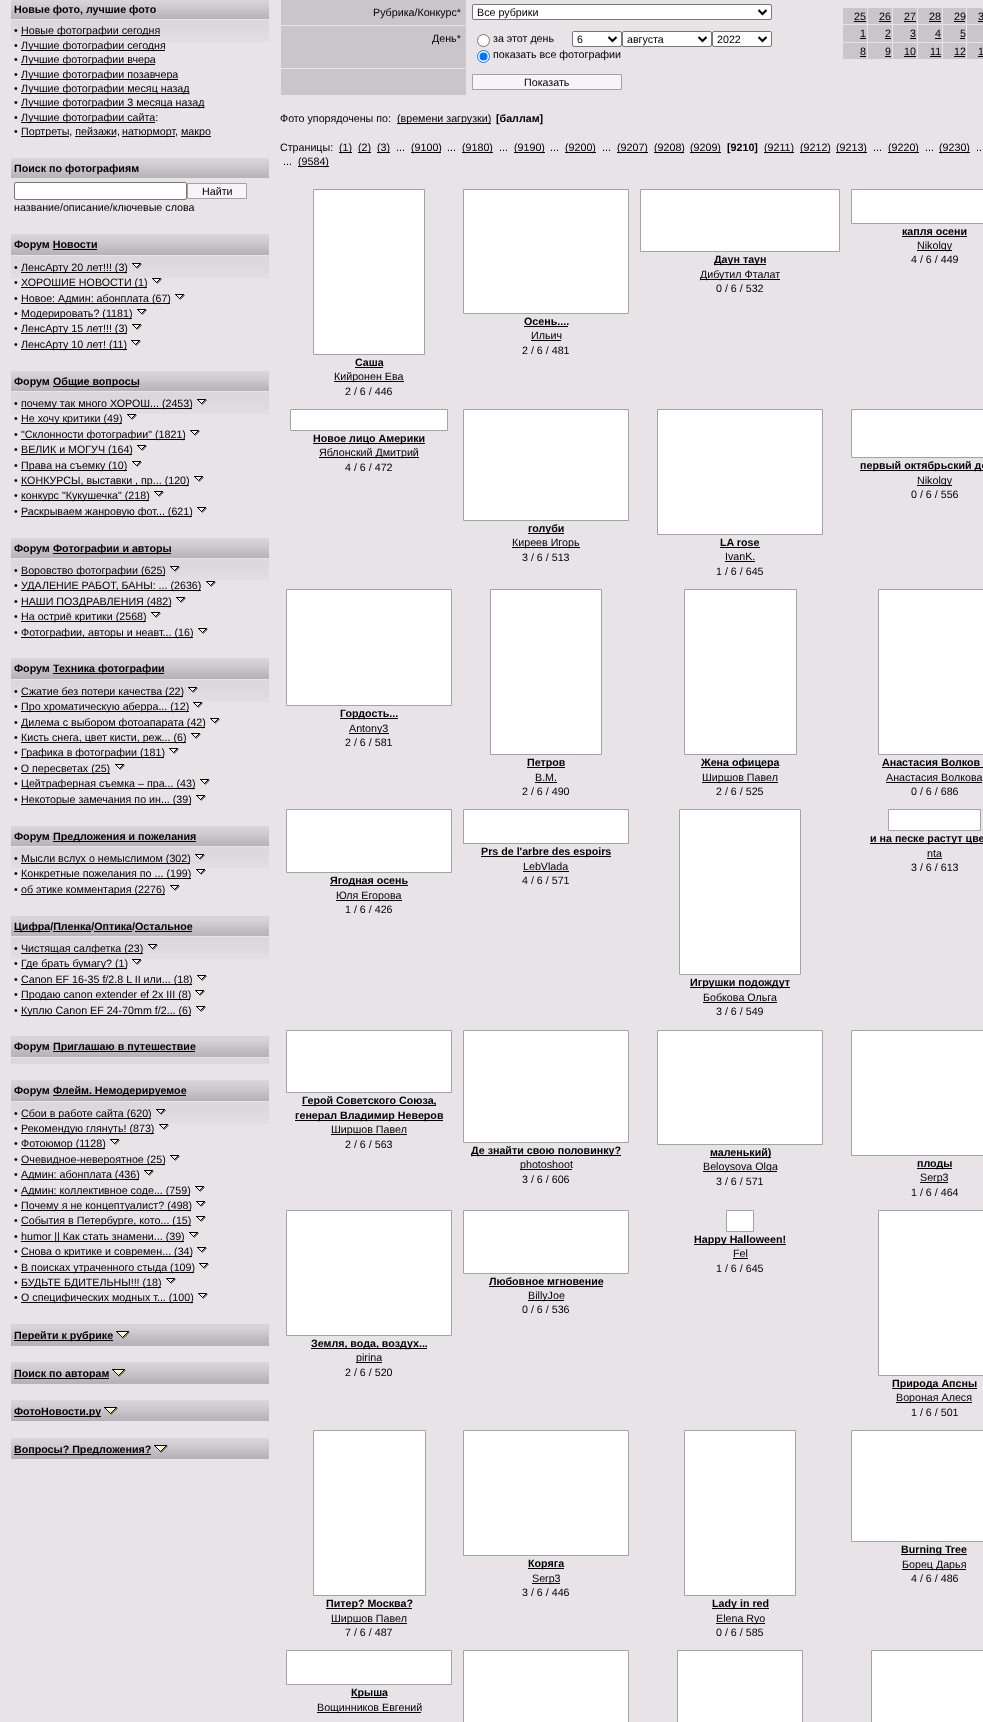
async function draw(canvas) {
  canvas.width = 983;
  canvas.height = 1722;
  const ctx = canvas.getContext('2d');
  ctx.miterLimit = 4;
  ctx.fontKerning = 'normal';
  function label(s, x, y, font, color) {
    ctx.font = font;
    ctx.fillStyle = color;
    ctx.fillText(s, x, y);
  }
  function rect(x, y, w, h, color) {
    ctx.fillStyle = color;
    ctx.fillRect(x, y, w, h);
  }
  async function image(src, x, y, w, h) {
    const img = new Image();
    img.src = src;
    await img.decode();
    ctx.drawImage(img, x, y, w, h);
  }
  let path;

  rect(0, 0, 983, 1722, '#e7e3e7');
  await image('assets/img1.png', 11, 0, 258, 19);
  label('Новые фото, лучшие фото', 14, 13, 'bold 10.7px Liberation Sans', '#000');
  await image('assets/img2.png', 11, 20, 258, 22);
  label('•', 14, 34, '10.7px Liberation Sans', '#000');
  rect(21, 35, 139, 1, '#000');
  label('Новые фотографии сегодня', 21, 34, '10.7px Liberation Sans', '#000');
  label('•', 14, 49, '10.7px Liberation Sans', '#000');
  rect(21, 50, 144, 1, '#000');
  label('Лучшие фотографии сегодня', 21, 49, '10.7px Liberation Sans', '#000');
  label('•', 14, 63, '10.7px Liberation Sans', '#000');
  rect(21, 64, 134, 1, '#000');
  label('Лучшие фотографии вчера', 21, 63, '10.7px Liberation Sans', '#000');
  label('•', 14, 78, '10.7px Liberation Sans', '#000');
  rect(21, 79, 157, 1, '#000');
  label('Лучшие фотографии позавчера', 21, 78, '10.7px Liberation Sans', '#000');
  label('•', 14, 92, '10.7px Liberation Sans', '#000');
  rect(21, 93, 168, 1, '#000');
  label('Лучшие фотографии месяц назад', 21, 92, '10.7px Liberation Sans', '#000');
  label('•', 14, 106, '10.7px Liberation Sans', '#000');
  rect(21, 107, 183, 1, '#000');
  label('Лучшие фотографии 3 месяца назад', 21, 106, '10.7px Liberation Sans', '#000');
  label('•', 14, 121, '10.7px Liberation Sans', '#000');
  rect(21, 122, 134, 1, '#000');
  label('Лучшие фотографии сайта:', 21, 121, '10.7px Liberation Sans', '#000');
  label('•', 14, 135, '10.7px Liberation Sans', '#000');
  rect(21, 136, 48, 1, '#000');
  label('Портреты, пейзажи,', 21, 135, '10.7px Liberation Sans', '#000');
  rect(122, 136, 53, 1, '#000');
  label('натюрморт', 122, 135, '10.7px Liberation Sans', '#000');
  rect(181, 136, 30, 1, '#000');
  label('макро', 181, 135, '10.7px Liberation Sans', '#000');
  rect(75, 136, 41, 1, '#000');
  label(',', 175, 135, '10.7px Liberation Sans', '#000');
  await image('assets/img3.png', 11, 158, 258, 20);
  label('Поиск по фотографиям', 14, 172, 'bold 10.7px Liberation Sans', '#000');
  ctx.fillStyle = '#fff';
  ctx.beginPath();
  ctx.roundRect(14.5, 182.5, 172, 17, 1.5);
  ctx.fill();
  ctx.strokeStyle = '#767676';
  ctx.stroke();
  ctx.fillStyle = '#f7f3f7';
  ctx.beginPath();
  ctx.rect(187.5, 183.5, 59, 15);
  ctx.fill();
  ctx.strokeStyle = '#a5a2a5';
  ctx.stroke();
  label('Найти', 202, 195, '10.7px Liberation Sans', '#000');
  label('название/описание/ключевые слова', 14, 211, '10.7px Liberation Sans', '#000');
  await image('assets/img4.png', 11, 234, 258, 21);
  label('Форум Новости', 14, 248, 'bold 10.7px Liberation Sans', '#000');
  rect(53, 249, 44, 1, '#000');
  await image('assets/img2.png', 11, 256, 258, 22);
  label('•', 14, 271, '10.7px Liberation Sans', '#000');
  rect(21, 272, 106, 1, '#000');
  label('ЛенсАрту 20 лет!!! (3)', 21, 271, '10.7px Liberation Sans', '#000');
  await image('assets/img5.png', 132, 263, 10, 6);
  label('•', 14, 286, '10.7px Liberation Sans', '#000');
  rect(21, 287, 126, 1, '#000');
  label('ХОРОШИЕ НОВОСТИ (1)', 21, 286, '10.7px Liberation Sans', '#000');
  await image('assets/img6.png', 152, 278, 10, 6);
  label('•', 14, 302, '10.7px Liberation Sans', '#000');
  rect(21, 303, 149, 1, '#000');
  label('Новое: Админ: абонплата (67)', 21, 302, '10.7px Liberation Sans', '#000');
  await image('assets/img6.png', 175, 294, 10, 6);
  label('•', 14, 317, '10.7px Liberation Sans', '#000');
  rect(21, 318, 111, 1, '#000');
  label('Модерировать? (1181)', 21, 317, '10.7px Liberation Sans', '#000');
  await image('assets/img6.png', 137, 309, 10, 6);
  label('•', 14, 332, '10.7px Liberation Sans', '#000');
  rect(21, 333, 106, 1, '#000');
  label('ЛенсАрту 15 лет!!! (3)', 21, 332, '10.7px Liberation Sans', '#000');
  await image('assets/img6.png', 132, 324, 10, 6);
  label('•', 14, 348, '10.7px Liberation Sans', '#000');
  rect(21, 349, 106, 1, '#000');
  label('ЛенсАрту 10 лет! (11)', 21, 348, '10.7px Liberation Sans', '#000');
  await image('assets/img6.png', 131, 340, 10, 6);
  await image('assets/img3.png', 11, 371, 258, 20);
  label('Форум', 14, 385, 'bold 10.7px Liberation Sans', '#000');
  rect(53, 386, 86, 1, '#000');
  label('Общие вопросы', 53, 385, 'bold 10.7px Liberation Sans', '#000');
  await image('assets/img2.png', 11, 392, 258, 22);
  label('•', 14, 407, '10.7px Liberation Sans', '#000');
  rect(21, 408, 171, 1, '#000');
  label('почему так много ХОРОШ... (2453)', 21, 407, '10.7px Liberation Sans', '#000');
  await image('assets/img5.png', 197, 399, 10, 6);
  label('•', 14, 422, '10.7px Liberation Sans', '#000');
  rect(21, 423, 101, 1, '#000');
  label('Не хочу критики (49)', 21, 422, '10.7px Liberation Sans', '#000');
  await image('assets/img6.png', 127, 414, 10, 6);
  label('•', 14, 438, '10.7px Liberation Sans', '#000');
  rect(21, 439, 164, 1, '#000');
  label('"Склонности фотографии" (1821)', 21, 438, '10.7px Liberation Sans', '#000');
  await image('assets/img6.png', 190, 430, 10, 6);
  label('•', 14, 453, '10.7px Liberation Sans', '#000');
  rect(21, 454, 111, 1, '#000');
  label('ВЕЛИК и МОГУЧ (164)', 21, 453, '10.7px Liberation Sans', '#000');
  await image('assets/img6.png', 137, 445, 10, 6);
  label('•', 14, 469, '10.7px Liberation Sans', '#000');
  rect(21, 470, 106, 1, '#000');
  label('Права на съемку (10)', 21, 469, '10.7px Liberation Sans', '#000');
  await image('assets/img6.png', 132, 461, 10, 6);
  label('•', 14, 484, '10.7px Liberation Sans', '#000');
  rect(21, 485, 168, 1, '#000');
  label('КОНКУРСЫ, выставки , пр... (120)', 21, 484, '10.7px Liberation Sans', '#000');
  await image('assets/img6.png', 194, 476, 10, 6);
  label('•', 14, 499, '10.7px Liberation Sans', '#000');
  rect(21, 500, 128, 1, '#000');
  label('конкурс "Кукушечка" (218)', 21, 499, '10.7px Liberation Sans', '#000');
  await image('assets/img6.png', 154, 491, 10, 6);
  label('•', 14, 515, '10.7px Liberation Sans', '#000');
  rect(21, 516, 171, 1, '#000');
  label('Раскрываем жанровую фот... (621)', 21, 515, '10.7px Liberation Sans', '#000');
  await image('assets/img6.png', 197, 507, 10, 6);
  await image('assets/img3.png', 11, 538, 258, 20);
  label('Форум', 14, 552, 'bold 10.7px Liberation Sans', '#000');
  rect(53, 553, 118, 1, '#000');
  label('Фотографии и авторы', 53, 552, 'bold 10.7px Liberation Sans', '#000');
  await image('assets/img2.png', 11, 559, 258, 22);
  label('•', 14, 574, '10.7px Liberation Sans', '#000');
  rect(21, 575, 144, 1, '#000');
  label('Воровство фотографии (625)', 21, 574, '10.7px Liberation Sans', '#000');
  await image('assets/img5.png', 170, 566, 10, 6);
  label('•', 14, 589, '10.7px Liberation Sans', '#000');
  rect(21, 590, 180, 1, '#000');
  label('УДАЛЕНИЕ РАБОТ, БАНЫ: ... (2636)', 21, 589, '10.7px Liberation Sans', '#000');
  await image('assets/img6.png', 206, 581, 10, 6);
  label('•', 14, 605, '10.7px Liberation Sans', '#000');
  rect(21, 606, 150, 1, '#000');
  label('НАШИ ПОЗДРАВЛЕНИЯ (482)', 21, 605, '10.7px Liberation Sans', '#000');
  await image('assets/img6.png', 176, 597, 10, 6);
  label('•', 14, 620, '10.7px Liberation Sans', '#000');
  rect(21, 621, 125, 1, '#000');
  label('На остриё критики (2568)', 21, 620, '10.7px Liberation Sans', '#000');
  await image('assets/img6.png', 151, 612, 10, 6);
  label('•', 14, 636, '10.7px Liberation Sans', '#000');
  rect(21, 637, 172, 1, '#000');
  label('Фотографии, авторы и неавт... (16)', 21, 636, '10.7px Liberation Sans', '#000');
  await image('assets/img6.png', 198, 628, 10, 6);
  await image('assets/img4.png', 11, 658, 258, 21);
  label('Форум', 14, 672, 'bold 10.7px Liberation Sans', '#000');
  rect(53, 673, 111, 1, '#000');
  label('Техника фотографии', 53, 672, 'bold 10.7px Liberation Sans', '#000');
  await image('assets/img2.png', 11, 680, 258, 22);
  label('•', 14, 695, '10.7px Liberation Sans', '#000');
  rect(21, 696, 162, 1, '#000');
  label('Сжатие без потери качества (22)', 21, 695, '10.7px Liberation Sans', '#000');
  await image('assets/img5.png', 188, 687, 10, 6);
  label('•', 14, 710, '10.7px Liberation Sans', '#000');
  rect(21, 711, 168, 1, '#000');
  label('Про хроматическую аберра... (12)', 21, 710, '10.7px Liberation Sans', '#000');
  await image('assets/img6.png', 193, 702, 10, 6);
  label('•', 14, 726, '10.7px Liberation Sans', '#000');
  rect(21, 727, 184, 1, '#000');
  label('Дилема с выбором фотоапарата (42)', 21, 726, '10.7px Liberation Sans', '#000');
  await image('assets/img6.png', 210, 718, 10, 6);
  label('•', 14, 741, '10.7px Liberation Sans', '#000');
  rect(21, 742, 165, 1, '#000');
  label('Кисть снега, цвет кисти, реж... (6)', 21, 741, '10.7px Liberation Sans', '#000');
  await image('assets/img6.png', 191, 733, 10, 6);
  label('•', 14, 756, '10.7px Liberation Sans', '#000');
  rect(21, 757, 143, 1, '#000');
  label('Графика в фотографии (181)', 21, 756, '10.7px Liberation Sans', '#000');
  await image('assets/img6.png', 169, 748, 10, 6);
  label('• О', 14, 772, '10.7px Liberation Sans', '#000');
  rect(21, 773, 89, 1, '#000');
  label('пересветах (25)', 32, 772, '10.7px Liberation Sans', '#000');
  await image('assets/img6.png', 115, 764, 10, 6);
  label('•', 14, 787, '10.7px Liberation Sans', '#000');
  rect(21, 788, 174, 1, '#000');
  label('Цейтраферная съемка – пра... (43)', 21, 787, '10.7px Liberation Sans', '#000');
  await image('assets/img6.png', 200, 779, 10, 6);
  label('•', 14, 803, '10.7px Liberation Sans', '#000');
  rect(21, 804, 170, 1, '#000');
  label('Некоторые замечания по ин... (39)', 21, 803, '10.7px Liberation Sans', '#000');
  await image('assets/img6.png', 196, 795, 10, 6);
  await image('assets/img3.png', 11, 826, 258, 20);
  label('Форум', 14, 840, 'bold 10.7px Liberation Sans', '#000');
  rect(53, 841, 143, 1, '#000');
  label('Предложения и пожелания', 53, 840, 'bold 10.7px Liberation Sans', '#000');
  await image('assets/img2.png', 11, 847, 258, 22);
  label('•', 14, 862, '10.7px Liberation Sans', '#000');
  rect(21, 863, 169, 1, '#000');
  label('Мысли вслух о немыслимом (302)', 21, 862, '10.7px Liberation Sans', '#000');
  await image('assets/img5.png', 195, 854, 10, 6);
  label('•', 14, 877, '10.7px Liberation Sans', '#000');
  rect(21, 878, 170, 1, '#000');
  label('Конкретные пожелания по ... (199)', 21, 877, '10.7px Liberation Sans', '#000');
  await image('assets/img6.png', 196, 869, 10, 6);
  label('•', 14, 893, '10.7px Liberation Sans', '#000');
  rect(21, 894, 144, 1, '#000');
  label('об этике комментария (2276)', 21, 893, '10.7px Liberation Sans', '#000');
  await image('assets/img6.png', 170, 885, 10, 6);
  await image('assets/img3.png', 11, 916, 258, 20);
  rect(14, 931, 36, 1, '#000');
  label('Цифра/Пленка/Оптика/Остальное', 14, 930, 'bold 10.7px Liberation Sans', '#000');
  rect(53, 931, 38, 1, '#000');
  rect(94, 931, 38, 1, '#000');
  rect(135, 931, 57, 1, '#000');
  await image('assets/img2.png', 11, 937, 258, 22);
  label('•', 14, 952, '10.7px Liberation Sans', '#000');
  rect(21, 953, 122, 1, '#000');
  label('Чистящая салфетка (23)', 21, 952, '10.7px Liberation Sans', '#000');
  await image('assets/img5.png', 148, 944, 10, 6);
  label('•', 14, 967, '10.7px Liberation Sans', '#000');
  rect(21, 968, 106, 1, '#000');
  label('Где брать бумагу? (1)', 21, 967, '10.7px Liberation Sans', '#000');
  await image('assets/img6.png', 132, 959, 10, 6);
  label('•', 14, 983, '10.7px Liberation Sans', '#000');
  rect(21, 984, 171, 1, '#000');
  label('Canon EF 16-35 f/2.8 L II или... (18)', 21, 983, '10.7px Liberation Sans', '#000');
  await image('assets/img6.png', 197, 975, 10, 6);
  label('•', 14, 998, '10.7px Liberation Sans', '#000');
  rect(21, 999, 169, 1, '#000');
  label('Продаю canon extender ef 2x III (8)', 21, 998, '10.7px Liberation Sans', '#000');
  await image('assets/img6.png', 195, 990, 10, 6);
  label('•', 14, 1014, '10.7px Liberation Sans', '#000');
  rect(21, 1015, 170, 1, '#000');
  label('Куплю Canon EF 24-70mm f/2... (6)', 21, 1014, '10.7px Liberation Sans', '#000');
  await image('assets/img6.png', 196, 1006, 10, 6);
  await image('assets/img4.png', 11, 1036, 258, 21);
  label('Форум', 14, 1050, 'bold 10.7px Liberation Sans', '#000');
  rect(53, 1051, 142, 1, '#000');
  label('Приглашаю в путешествие', 53, 1050, 'bold 10.7px Liberation Sans', '#000');
  rect(11, 1058, 258, 6, '#dcd7dc');
  await image('assets/img4.png', 11, 1080, 258, 21);
  label('Форум', 14, 1094, 'bold 10.7px Liberation Sans', '#000');
  rect(53, 1095, 133, 1, '#000');
  label('Флейм. Немодерируемое', 53, 1094, 'bold 10.7px Liberation Sans', '#000');
  await image('assets/img2.png', 11, 1102, 258, 22);
  label('•', 14, 1117, '10.7px Liberation Sans', '#000');
  rect(21, 1118, 130, 1, '#000');
  label('Сбои в работе сайта (620)', 21, 1117, '10.7px Liberation Sans', '#000');
  await image('assets/img5.png', 156, 1109, 10, 6);
  label('•', 14, 1132, '10.7px Liberation Sans', '#000');
  rect(21, 1133, 133, 1, '#000');
  label('Рекомендую глянуть! (873)', 21, 1132, '10.7px Liberation Sans', '#000');
  await image('assets/img6.png', 159, 1124, 10, 6);
  label('•', 14, 1147, '10.7px Liberation Sans', '#000');
  rect(21, 1148, 84, 1, '#000');
  label('Фотоюмор (1128)', 21, 1147, '10.7px Liberation Sans', '#000');
  await image('assets/img6.png', 110, 1139, 10, 6);
  label('•', 14, 1163, '10.7px Liberation Sans', '#000');
  rect(21, 1164, 144, 1, '#000');
  label('Очевидное-невероятное (25)', 21, 1163, '10.7px Liberation Sans', '#000');
  await image('assets/img6.png', 170, 1155, 10, 6);
  label('•', 14, 1178, '10.7px Liberation Sans', '#000');
  rect(21, 1179, 118, 1, '#000');
  label('Админ: абонплата (436)', 21, 1178, '10.7px Liberation Sans', '#000');
  await image('assets/img6.png', 144, 1170, 10, 6);
  label('•', 14, 1194, '10.7px Liberation Sans', '#000');
  rect(21, 1195, 169, 1, '#000');
  label('Админ: коллективное соде... (759)', 21, 1194, '10.7px Liberation Sans', '#000');
  await image('assets/img6.png', 195, 1186, 10, 6);
  label('•', 14, 1209, '10.7px Liberation Sans', '#000');
  rect(21, 1210, 170, 1, '#000');
  label('Почему я не концептуалист? (498)', 21, 1209, '10.7px Liberation Sans', '#000');
  await image('assets/img6.png', 196, 1201, 10, 6);
  label('•', 14, 1224, '10.7px Liberation Sans', '#000');
  rect(21, 1225, 170, 1, '#000');
  label('События в Петербурге, кото... (15)', 21, 1224, '10.7px Liberation Sans', '#000');
  await image('assets/img6.png', 196, 1216, 10, 6);
  label('•', 14, 1240, '10.7px Liberation Sans', '#000');
  rect(21, 1241, 163, 1, '#000');
  label('humor || Как стать знамени... (39)', 21, 1240, '10.7px Liberation Sans', '#000');
  await image('assets/img6.png', 189, 1232, 10, 6);
  label('•', 14, 1255, '10.7px Liberation Sans', '#000');
  rect(21, 1256, 171, 1, '#000');
  label('Снова о критике и современ... (34)', 21, 1255, '10.7px Liberation Sans', '#000');
  await image('assets/img6.png', 197, 1247, 10, 6);
  label('•', 14, 1271, '10.7px Liberation Sans', '#000');
  rect(21, 1272, 173, 1, '#000');
  label('В поисках утраченного стыда (109)', 21, 1271, '10.7px Liberation Sans', '#000');
  await image('assets/img6.png', 199, 1263, 10, 6);
  label('•', 14, 1286, '10.7px Liberation Sans', '#000');
  rect(21, 1287, 140, 1, '#000');
  label('БУДЬТЕ БДИТЕЛЬНЫ!!! (18)', 21, 1286, '10.7px Liberation Sans', '#000');
  await image('assets/img6.png', 166, 1278, 10, 6);
  label('•', 14, 1301, '10.7px Liberation Sans', '#000');
  rect(21, 1302, 172, 1, '#000');
  label('О специфических модных т... (100)', 21, 1301, '10.7px Liberation Sans', '#000');
  await image('assets/img6.png', 198, 1293, 10, 6);
  await image('assets/img7.png', 11, 1324, 258, 22);
  rect(14, 1340, 99, 1, '#000');
  label('Перейти к рубрике', 14, 1339, 'bold 10.7px Liberation Sans', '#000');
  await image('assets/img8.png', 116, 1331, 14, 8);
  await image('assets/img7.png', 11, 1362, 258, 22);
  rect(14, 1378, 95, 1, '#000');
  label('Поиск по авторам', 14, 1377, 'bold 10.7px Liberation Sans', '#000');
  await image('assets/img8.png', 112, 1369, 14, 8);
  await image('assets/img4.png', 11, 1400, 258, 21);
  rect(14, 1416, 87, 1, '#000');
  label('ФотоНовости.ру', 14, 1415, 'bold 10.7px Liberation Sans', '#000');
  await image('assets/img8.png', 104, 1407, 14, 8);
  await image('assets/img4.png', 11, 1438, 258, 21);
  rect(14, 1454, 137, 1, '#000');
  label('Вопросы? Предложения?', 14, 1453, 'bold 10.7px Liberation Sans', '#000');
  await image('assets/img8.png', 154, 1445, 14, 8);
  rect(281, 0, 185, 25, '#cac5ca');
  label('Рубрика/Конкурс*', 373, 16, '10.7px Liberation Sans', '#000');
  ctx.fillStyle = '#fff';
  ctx.beginPath();
  ctx.roundRect(472.5, 4.5, 299, 15, 1.5);
  ctx.fill();
  ctx.strokeStyle = '#767676';
  ctx.stroke();
  path = new Path2D('M758.5 10L762.5 14L766.5 10');
  ctx.strokeStyle = '#000';
  ctx.lineWidth = 2;
  ctx.stroke(path);
  label('Все рубрики', 477, 16, '10.7px Liberation Sans', '#000');
  rect(843, 8, 24, 16, '#cac5ca');
  label('25', 854, 20, '10.7px Liberation Sans', '#000');
  rect(854, 21, 12, 1, '#000');
  rect(868, 8, 24, 16, '#cac5ca');
  label('26', 879, 20, '10.7px Liberation Sans', '#000');
  rect(879, 21, 12, 1, '#000');
  rect(893, 8, 24, 16, '#cac5ca');
  label('27', 904, 20, '10.7px Liberation Sans', '#000');
  rect(904, 21, 12, 1, '#000');
  rect(918, 8, 24, 16, '#cac5ca');
  label('28', 929, 20, '10.7px Liberation Sans', '#000');
  rect(929, 21, 12, 1, '#000');
  rect(943, 8, 23, 16, '#cac5ca');
  label('29', 954, 20, '10.7px Liberation Sans', '#000');
  rect(954, 21, 11, 1, '#000');
  rect(967, 8, 16, 16, '#cac5ca');
  label('3', 978, 20, '10.7px Liberation Sans', '#000');
  rect(978, 21, 5, 1, '#000');
  rect(843, 25, 24, 17, '#cac5ca');
  label('1', 860, 37, '10.7px Liberation Sans', '#000');
  rect(860, 38, 6, 1, '#000');
  rect(868, 25, 24, 17, '#cac5ca');
  label('2', 885, 37, '10.7px Liberation Sans', '#000');
  rect(885, 38, 6, 1, '#000');
  rect(893, 25, 24, 17, '#cac5ca');
  label('3', 910, 37, '10.7px Liberation Sans', '#000');
  rect(910, 38, 6, 1, '#000');
  rect(918, 25, 24, 17, '#cac5ca');
  label('4', 935, 37, '10.7px Liberation Sans', '#000');
  rect(935, 38, 6, 1, '#000');
  rect(943, 25, 23, 17, '#cac5ca');
  label('5', 960, 37, '10.7px Liberation Sans', '#000');
  rect(960, 38, 5, 1, '#000');
  rect(967, 25, 16, 17, '#cac5ca');
  rect(843, 43, 24, 16, '#cac5ca');
  label('8', 860, 55, '10.7px Liberation Sans', '#000');
  rect(860, 56, 6, 1, '#000');
  rect(868, 43, 24, 16, '#cac5ca');
  label('9', 885, 55, '10.7px Liberation Sans', '#000');
  rect(885, 56, 6, 1, '#000');
  rect(893, 43, 24, 16, '#cac5ca');
  label('10', 904, 55, '10.7px Liberation Sans', '#000');
  rect(904, 56, 12, 1, '#000');
  rect(918, 43, 24, 16, '#cac5ca');
  label('11', 930, 55, '10.7px Liberation Sans', '#000');
  rect(930, 56, 11, 1, '#000');
  rect(943, 43, 23, 16, '#cac5ca');
  label('12', 954, 55, '10.7px Liberation Sans', '#000');
  rect(954, 56, 11, 1, '#000');
  rect(967, 43, 16, 16, '#cac5ca');
  label('1', 978, 55, '10.7px Liberation Sans', '#000');
  rect(978, 56, 5, 1, '#000');
  rect(281, 26, 185, 42, '#cac5ca');
  label('День*', 432, 42, '10.7px Liberation Sans', '#000');
  ctx.fillStyle = '#fff';
  ctx.beginPath();
  ctx.arc(483.5, 40.5, 6, 0, 2 * Math.PI);
  ctx.fill();
  ctx.strokeStyle = '#767676';
  ctx.lineWidth = 1;
  ctx.stroke();
  label('за этот день', 493, 42, '10.7px Liberation Sans', '#000');
  ctx.fillStyle = '#fff';
  ctx.beginPath();
  ctx.roundRect(572.5, 31.5, 49, 15, 1.5);
  ctx.fill();
  ctx.stroke();
  path = new Path2D('M608.5 37L612.5 41L616.5 37');
  ctx.strokeStyle = '#000';
  ctx.lineWidth = 2;
  ctx.stroke(path);
  label('6', 577, 43, '10.7px Liberation Sans', '#000');
  ctx.fillStyle = '#fff';
  ctx.beginPath();
  ctx.roundRect(622.5, 31.5, 89, 15, 1.5);
  ctx.fill();
  ctx.strokeStyle = '#767676';
  ctx.lineWidth = 1;
  ctx.stroke();
  path = new Path2D('M698.5 37L702.5 41L706.5 37');
  ctx.strokeStyle = '#000';
  ctx.lineWidth = 2;
  ctx.stroke(path);
  label('августа', 627, 43, '10.7px Liberation Sans', '#000');
  ctx.fillStyle = '#fff';
  ctx.beginPath();
  ctx.roundRect(712.5, 31.5, 59, 15, 1.5);
  ctx.fill();
  ctx.strokeStyle = '#767676';
  ctx.lineWidth = 1;
  ctx.stroke();
  path = new Path2D('M758.5 37L762.5 41L766.5 37');
  ctx.strokeStyle = '#000';
  ctx.lineWidth = 2;
  ctx.stroke(path);
  label('2022', 717, 43, '10.7px Liberation Sans', '#000');
  ctx.fillStyle = '#fff';
  ctx.beginPath();
  ctx.arc(483.5, 56.5, 6, 0, 2 * Math.PI);
  ctx.fill();
  ctx.strokeStyle = '#0075ff';
  ctx.lineWidth = 1;
  ctx.stroke();
  ctx.fillStyle = '#0075ff';
  ctx.beginPath();
  ctx.arc(483.5, 56.5, 4, 0, 2 * Math.PI);
  ctx.fill();
  label('показать все фотографии', 493, 58, '10.7px Liberation Sans', '#000');
  rect(281, 69, 185, 26, '#cac5ca');
  ctx.fillStyle = '#f7f3f7';
  ctx.beginPath();
  ctx.rect(472.5, 74.5, 149, 15);
  ctx.fill();
  ctx.strokeStyle = '#a5a2a5';
  ctx.stroke();
  label('Показать', 524, 86, '10.7px Liberation Sans', '#000');
  label('Фото упорядочены по:', 280, 122, '10.7px Liberation Sans', '#000');
  rect(397, 123, 94, 1, '#000');
  label('(времени загрузки)', 397, 122, '10.7px Liberation Sans', '#000');
  label('[баллам]', 496, 122, 'bold 10.7px Liberation Sans', '#000');
  label('Страницы:', 280, 151, '10.7px Liberation Sans', '#000');
  rect(339, 152, 13, 1, '#000');
  label('(1)', 339, 151, '10.7px Liberation Sans', '#000');
  rect(358, 152, 13, 1, '#000');
  label('(2)', 358, 151, '10.7px Liberation Sans', '#000');
  rect(377, 152, 13, 1, '#000');
  label('(3)', 377, 151, '10.7px Liberation Sans', '#000');
  label('...', 396, 151, '10.7px Liberation Sans', '#000');
  rect(411, 152, 30, 1, '#000');
  label('(9100)', 411, 151, '10.7px Liberation Sans', '#000');
  label('...', 447, 151, '10.7px Liberation Sans', '#000');
  rect(462, 152, 31, 1, '#000');
  label('(9180)', 462, 151, '10.7px Liberation Sans', '#000');
  label('...', 499, 151, '10.7px Liberation Sans', '#000');
  rect(514, 152, 31, 1, '#000');
  label('(9190)', 514, 151, '10.7px Liberation Sans', '#000');
  label('...', 550, 151, '10.7px Liberation Sans', '#000');
  rect(565, 152, 31, 1, '#000');
  label('(9200)', 565, 151, '10.7px Liberation Sans', '#000');
  label('...', 602, 151, '10.7px Liberation Sans', '#000');
  rect(617, 152, 31, 1, '#000');
  label('(9207)', 617, 151, '10.7px Liberation Sans', '#000');
  rect(654, 152, 30, 1, '#000');
  label('(9208)', 654, 151, '10.7px Liberation Sans', '#000');
  rect(690, 152, 31, 1, '#000');
  label('(9209)', 690, 151, '10.7px Liberation Sans', '#000');
  label('[9210]', 727, 151, 'bold 10.7px Liberation Sans', '#000');
  rect(764, 152, 30, 1, '#000');
  label('(9211)', 764, 151, '10.7px Liberation Sans', '#000');
  rect(800, 152, 30, 1, '#000');
  label('(9212)', 800, 151, '10.7px Liberation Sans', '#000');
  rect(836, 152, 31, 1, '#000');
  label('(9213)', 836, 151, '10.7px Liberation Sans', '#000');
  label('...', 873, 151, '10.7px Liberation Sans', '#000');
  rect(888, 152, 31, 1, '#000');
  label('(9220)', 888, 151, '10.7px Liberation Sans', '#000');
  label('...', 925, 151, '10.7px Liberation Sans', '#000');
  rect(939, 152, 31, 1, '#000');
  label('(9230)', 939, 151, '10.7px Liberation Sans', '#000');
  label('..', 976, 151, '10.7px Liberation Sans', '#000');
  label('...', 283, 165, '10.7px Liberation Sans', '#000');
  rect(298, 166, 31, 1, '#000');
  label('(9584)', 298, 165, '10.7px Liberation Sans', '#000');
  ctx.fillStyle = '#fff';
  ctx.beginPath();
  ctx.rect(851.5, 189.5, 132, 34);
  ctx.fill();
  ctx.stroke();
  label('капля осени', 902, 235, 'bold 10.7px Liberation Sans', '#000');
  rect(902, 236, 65, 1, '#000');
  rect(917, 250, 35, 1, '#000');
  label('Nikolgy', 917, 249, '10.7px Liberation Sans', '#000');
  label('4 / 6 / 449', 911, 263, '10.7px Liberation Sans', '#000');
  ctx.fillStyle = '#fff';
  ctx.beginPath();
  ctx.rect(640.5, 189.5, 199, 62);
  ctx.fill();
  ctx.stroke();
  rect(714, 264, 52, 1, '#000');
  label('Даун таун', 714, 263, 'bold 10.7px Liberation Sans', '#000');
  rect(700, 279, 80, 1, '#000');
  label('Дибутил Фталат', 700, 278, '10.7px Liberation Sans', '#000');
  label('0 / 6 / 532', 716, 292, '10.7px Liberation Sans', '#000');
  ctx.fillStyle = '#fff';
  ctx.beginPath();
  ctx.rect(463.5, 189.5, 165, 124);
  ctx.fill();
  ctx.stroke();
  label('Осень....', 524, 325, 'bold 10.7px Liberation Sans', '#000');
  rect(524, 326, 44, 1, '#000');
  label('Ильич', 531, 339, '10.7px Liberation Sans', '#000');
  rect(531, 340, 30, 1, '#000');
  label('2 / 6 / 481', 522, 354, '10.7px Liberation Sans', '#000');
  ctx.fillStyle = '#fff';
  ctx.beginPath();
  ctx.rect(313.5, 189.5, 111, 165);
  ctx.fill();
  ctx.stroke();
  label('Саша', 355, 366, 'bold 10.7px Liberation Sans', '#000');
  rect(355, 367, 28, 1, '#000');
  rect(334, 381, 70, 1, '#000');
  label('Кийронен Ева', 334, 380, '10.7px Liberation Sans', '#000');
  label('2 / 6 / 446', 345, 395, '10.7px Liberation Sans', '#000');
  ctx.fillStyle = '#fff';
  ctx.beginPath();
  ctx.rect(290.5, 409.5, 157, 21);
  ctx.fill();
  ctx.stroke();
  rect(313, 443, 112, 1, '#000');
  label('Новое лицо Америки', 313, 442, 'bold 10.7px Liberation Sans', '#000');
  rect(319, 457, 100, 1, '#000');
  label('Яблонский Дмитрий', 319, 456, '10.7px Liberation Sans', '#000');
  label('4 / 6 / 472', 345, 471, '10.7px Liberation Sans', '#000');
  ctx.fillStyle = '#fff';
  ctx.beginPath();
  ctx.rect(851.5, 409.5, 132, 48);
  ctx.fill();
  ctx.stroke();
  rect(860, 470, 123, 1, '#000');
  label('первый октябрьский до', 860, 469, 'bold 10.7px Liberation Sans', '#000');
  rect(917, 485, 35, 1, '#000');
  label('Nikolgy', 917, 484, '10.7px Liberation Sans', '#000');
  label('0 / 6 / 556', 911, 498, '10.7px Liberation Sans', '#000');
  ctx.fillStyle = '#fff';
  ctx.beginPath();
  ctx.rect(463.5, 409.5, 165, 111);
  ctx.fill();
  ctx.stroke();
  rect(528, 533, 36, 1, '#000');
  label('голуби', 528, 532, 'bold 10.7px Liberation Sans', '#000');
  rect(512, 547, 68, 1, '#000');
  label('Киреев Игорь', 512, 546, '10.7px Liberation Sans', '#000');
  label('3 / 6 / 513', 522, 561, '10.7px Liberation Sans', '#000');
  ctx.fillStyle = '#fff';
  ctx.beginPath();
  ctx.rect(657.5, 409.5, 165, 125);
  ctx.fill();
  ctx.stroke();
  label('LA rose', 720, 546, 'bold 10.7px Liberation Sans', '#000');
  rect(720, 547, 40, 1, '#000');
  label('IvanK.', 725, 560, '10.7px Liberation Sans', '#000');
  rect(725, 561, 30, 1, '#000');
  label('1 / 6 / 645', 716, 575, '10.7px Liberation Sans', '#000');
  ctx.fillStyle = '#fff';
  ctx.beginPath();
  ctx.rect(286.5, 589.5, 165, 116);
  ctx.fill();
  ctx.stroke();
  rect(340, 718, 58, 1, '#000');
  label('Гордость...', 340, 717, 'bold 10.7px Liberation Sans', '#000');
  rect(349, 733, 40, 1, '#000');
  label('Antony3', 349, 732, '10.7px Liberation Sans', '#000');
  label('2 / 6 / 581', 345, 746, '10.7px Liberation Sans', '#000');
  ctx.fillStyle = '#fff';
  ctx.beginPath();
  ctx.rect(490.5, 589.5, 111, 165);
  ctx.fill();
  ctx.stroke();
  rect(527, 767, 38, 1, '#000');
  label('Петров', 527, 766, 'bold 10.7px Liberation Sans', '#000');
  label('B.M.', 535, 781, '10.7px Liberation Sans', '#000');
  rect(535, 782, 22, 1, '#000');
  label('2 / 6 / 490', 522, 795, '10.7px Liberation Sans', '#000');
  ctx.fillStyle = '#fff';
  ctx.beginPath();
  ctx.rect(684.5, 589.5, 112, 165);
  ctx.fill();
  ctx.stroke();
  rect(701, 767, 78, 1, '#000');
  label('Жена офицера', 701, 766, 'bold 10.7px Liberation Sans', '#000');
  rect(702, 782, 76, 1, '#000');
  label('Ширшов Павел', 702, 781, '10.7px Liberation Sans', '#000');
  label('2 / 6 / 525', 716, 795, '10.7px Liberation Sans', '#000');
  ctx.fillStyle = '#fff';
  ctx.beginPath();
  ctx.rect(878.5, 589.5, 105, 165);
  ctx.fill();
  ctx.stroke();
  label('Анастасия Волков', 882, 766, 'bold 10.7px Liberation Sans', '#000');
  rect(882, 767, 101, 1, '#000');
  label('Анастасия Волкова', 886, 781, '10.7px Liberation Sans', '#000');
  rect(886, 782, 96, 1, '#000');
  label('0 / 6 / 686', 911, 795, '10.7px Liberation Sans', '#000');
  ctx.fillStyle = '#fff';
  ctx.beginPath();
  ctx.rect(463.5, 809.5, 165, 34);
  ctx.fill();
  ctx.stroke();
  rect(481, 856, 130, 1, '#000');
  label('Prs de l\'arbre des espoirs', 481, 855, 'bold 10.7px Liberation Sans', '#000');
  label('LebVlada', 523, 870, '10.7px Liberation Sans', '#000');
  rect(523, 871, 46, 1, '#000');
  label('4 / 6 / 571', 522, 884, '10.7px Liberation Sans', '#000');
  ctx.fillStyle = '#fff';
  ctx.beginPath();
  ctx.rect(888.5, 809.5, 92, 21);
  ctx.fill();
  ctx.stroke();
  rect(870, 843, 113, 1, '#000');
  label('и на песке растут цве', 870, 842, 'bold 10.7px Liberation Sans', '#000');
  label('nta', 927, 857, '10.7px Liberation Sans', '#000');
  rect(927, 858, 15, 1, '#000');
  label('3 / 6 / 613', 911, 871, '10.7px Liberation Sans', '#000');
  ctx.fillStyle = '#fff';
  ctx.beginPath();
  ctx.rect(286.5, 809.5, 165, 63);
  ctx.fill();
  ctx.stroke();
  rect(330, 885, 78, 1, '#000');
  label('Ягодная осень', 330, 884, 'bold 10.7px Liberation Sans', '#000');
  rect(336, 900, 66, 1, '#000');
  label('Юля Егорова', 336, 899, '10.7px Liberation Sans', '#000');
  label('1 / 6 / 426', 345, 913, '10.7px Liberation Sans', '#000');
  ctx.fillStyle = '#fff';
  ctx.beginPath();
  ctx.rect(679.5, 809.5, 121, 165);
  ctx.fill();
  ctx.stroke();
  rect(690, 987, 100, 1, '#000');
  label('Игрушки подождут', 690, 986, 'bold 10.7px Liberation Sans', '#000');
  label('Бобкова Ольга', 703, 1001, '10.7px Liberation Sans', '#000');
  rect(703, 1002, 74, 1, '#000');
  label('3 / 6 / 549', 716, 1015, '10.7px Liberation Sans', '#000');
  ctx.fillStyle = '#fff';
  ctx.beginPath();
  ctx.rect(286.5, 1030.5, 165, 62);
  ctx.fill();
  ctx.stroke();
  rect(302, 1105, 134, 1, '#000');
  label('Герой Советского Союза,', 302, 1104, 'bold 10.7px Liberation Sans', '#000');
  rect(295, 1120, 148, 1, '#000');
  label('генерал Владимир Неверов', 295, 1119, 'bold 10.7px Liberation Sans', '#000');
  rect(331, 1134, 76, 1, '#000');
  label('Ширшов Павел', 331, 1133, '10.7px Liberation Sans', '#000');
  label('2 / 6 / 563', 345, 1148, '10.7px Liberation Sans', '#000');
  ctx.fillStyle = '#fff';
  ctx.beginPath();
  ctx.rect(463.5, 1030.5, 165, 112);
  ctx.fill();
  ctx.stroke();
  rect(471, 1155, 150, 1, '#000');
  label('Де знайти свою половинку?', 471, 1154, 'bold 10.7px Liberation Sans', '#000');
  rect(520, 1169, 52, 1, '#000');
  label('photoshoot', 520, 1168, '10.7px Liberation Sans', '#000');
  label('3 / 6 / 606', 522, 1183, '10.7px Liberation Sans', '#000');
  ctx.fillStyle = '#fff';
  ctx.beginPath();
  ctx.rect(657.5, 1030.5, 165, 114);
  ctx.fill();
  ctx.stroke();
  rect(710, 1157, 61, 1, '#000');
  label('маленький)', 710, 1156, 'bold 10.7px Liberation Sans', '#000');
  rect(703, 1171, 74, 1, '#000');
  label('Beloysova Olga', 703, 1170, '10.7px Liberation Sans', '#000');
  label('3 / 6 / 571', 716, 1185, '10.7px Liberation Sans', '#000');
  ctx.fillStyle = '#fff';
  ctx.beginPath();
  ctx.rect(851.5, 1030.5, 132, 125);
  ctx.fill();
  ctx.stroke();
  rect(917, 1168, 35, 1, '#000');
  label('плоды', 917, 1167, 'bold 10.7px Liberation Sans', '#000');
  rect(920, 1182, 28, 1, '#000');
  label('Serp3', 920, 1181, '10.7px Liberation Sans', '#000');
  label('1 / 6 / 464', 911, 1196, '10.7px Liberation Sans', '#000');
  ctx.fillStyle = '#fff';
  ctx.beginPath();
  ctx.rect(726.5, 1210.5, 27, 21);
  ctx.fill();
  ctx.stroke();
  rect(694, 1244, 92, 1, '#000');
  label('Happy Halloween!', 694, 1243, 'bold 10.7px Liberation Sans', '#000');
  label('Fel', 733, 1257, '10.7px Liberation Sans', '#000');
  rect(733, 1258, 15, 1, '#000');
  label('1 / 6 / 645', 716, 1272, '10.7px Liberation Sans', '#000');
  ctx.fillStyle = '#fff';
  ctx.beginPath();
  ctx.rect(463.5, 1210.5, 165, 63);
  ctx.fill();
  ctx.stroke();
  label('Любовное мгновение', 489, 1285, 'bold 10.7px Liberation Sans', '#000');
  rect(489, 1286, 114, 1, '#000');
  rect(528, 1300, 36, 1, '#000');
  label('BillyJoe', 528, 1299, '10.7px Liberation Sans', '#000');
  label('0 / 6 / 536', 522, 1313, '10.7px Liberation Sans', '#000');
  ctx.fillStyle = '#fff';
  ctx.beginPath();
  ctx.rect(286.5, 1210.5, 165, 125);
  ctx.fill();
  ctx.stroke();
  rect(311, 1348, 116, 1, '#000');
  label('Земля, вода, воздух...', 311, 1347, 'bold 10.7px Liberation Sans', '#000');
  rect(356, 1362, 26, 1, '#000');
  label('pirina', 356, 1361, '10.7px Liberation Sans', '#000');
  label('2 / 6 / 520', 345, 1376, '10.7px Liberation Sans', '#000');
  ctx.fillStyle = '#fff';
  ctx.beginPath();
  ctx.rect(878.5, 1210.5, 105, 165);
  ctx.fill();
  ctx.stroke();
  rect(892, 1388, 85, 1, '#000');
  label('Природа Апсны', 892, 1387, 'bold 10.7px Liberation Sans', '#000');
  rect(896, 1402, 76, 1, '#000');
  label('Вороная Алеся', 896, 1401, '10.7px Liberation Sans', '#000');
  label('1 / 6 / 501', 911, 1416, '10.7px Liberation Sans', '#000');
  ctx.fillStyle = '#fff';
  ctx.beginPath();
  ctx.rect(463.5, 1430.5, 165, 125);
  ctx.fill();
  ctx.stroke();
  rect(528, 1568, 36, 1, '#000');
  label('Коряга', 528, 1567, 'bold 10.7px Liberation Sans', '#000');
  rect(532, 1583, 28, 1, '#000');
  label('Serp3', 532, 1582, '10.7px Liberation Sans', '#000');
  label('3 / 6 / 446', 522, 1596, '10.7px Liberation Sans', '#000');
  ctx.fillStyle = '#fff';
  ctx.beginPath();
  ctx.rect(851.5, 1430.5, 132, 111);
  ctx.fill();
  ctx.stroke();
  rect(901, 1554, 66, 1, '#000');
  label('Burning Tree', 901, 1553, 'bold 10.7px Liberation Sans', '#000');
  rect(902, 1569, 64, 1, '#000');
  label('Борец Дарья', 902, 1568, '10.7px Liberation Sans', '#000');
  label('4 / 6 / 486', 911, 1582, '10.7px Liberation Sans', '#000');
  ctx.fillStyle = '#fff';
  ctx.beginPath();
  ctx.rect(313.5, 1430.5, 112, 165);
  ctx.fill();
  ctx.stroke();
  rect(326, 1608, 86, 1, '#000');
  label('Питер? Москва?', 326, 1607, 'bold 10.7px Liberation Sans', '#000');
  rect(331, 1623, 76, 1, '#000');
  label('Ширшов Павел', 331, 1622, '10.7px Liberation Sans', '#000');
  label('7 / 6 / 487', 345, 1636, '10.7px Liberation Sans', '#000');
  ctx.fillStyle = '#fff';
  ctx.beginPath();
  ctx.rect(684.5, 1430.5, 111, 165);
  ctx.fill();
  ctx.stroke();
  rect(712, 1608, 57, 1, '#000');
  label('Lady in red', 712, 1607, 'bold 10.7px Liberation Sans', '#000');
  rect(716, 1623, 49, 1, '#000');
  label('Elena Ryo', 716, 1622, '10.7px Liberation Sans', '#000');
  label('0 / 6 / 585', 716, 1636, '10.7px Liberation Sans', '#000');
  ctx.fillStyle = '#fff';
  ctx.beginPath();
  ctx.rect(286.5, 1650.5, 165, 34);
  ctx.fill();
  ctx.stroke();
  rect(351, 1697, 36, 1, '#000');
  label('Крыша', 351, 1696, 'bold 10.7px Liberation Sans', '#000');
  rect(317, 1712, 104, 1, '#000');
  label('Вощинников Евгений', 317, 1711, '10.7px Liberation Sans', '#000');
  ctx.fillStyle = '#fff';
  ctx.beginPath();
  ctx.rect(463.5, 1650.5, 165, 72);
  ctx.fill();
  ctx.stroke();
  ctx.beginPath();
  ctx.rect(677.5, 1650.5, 125, 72);
  ctx.fill();
  ctx.stroke();
  ctx.beginPath();
  ctx.rect(871.5, 1650.5, 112, 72);
  ctx.fill();
  ctx.stroke();
}

draw(document.querySelector('canvas'));
